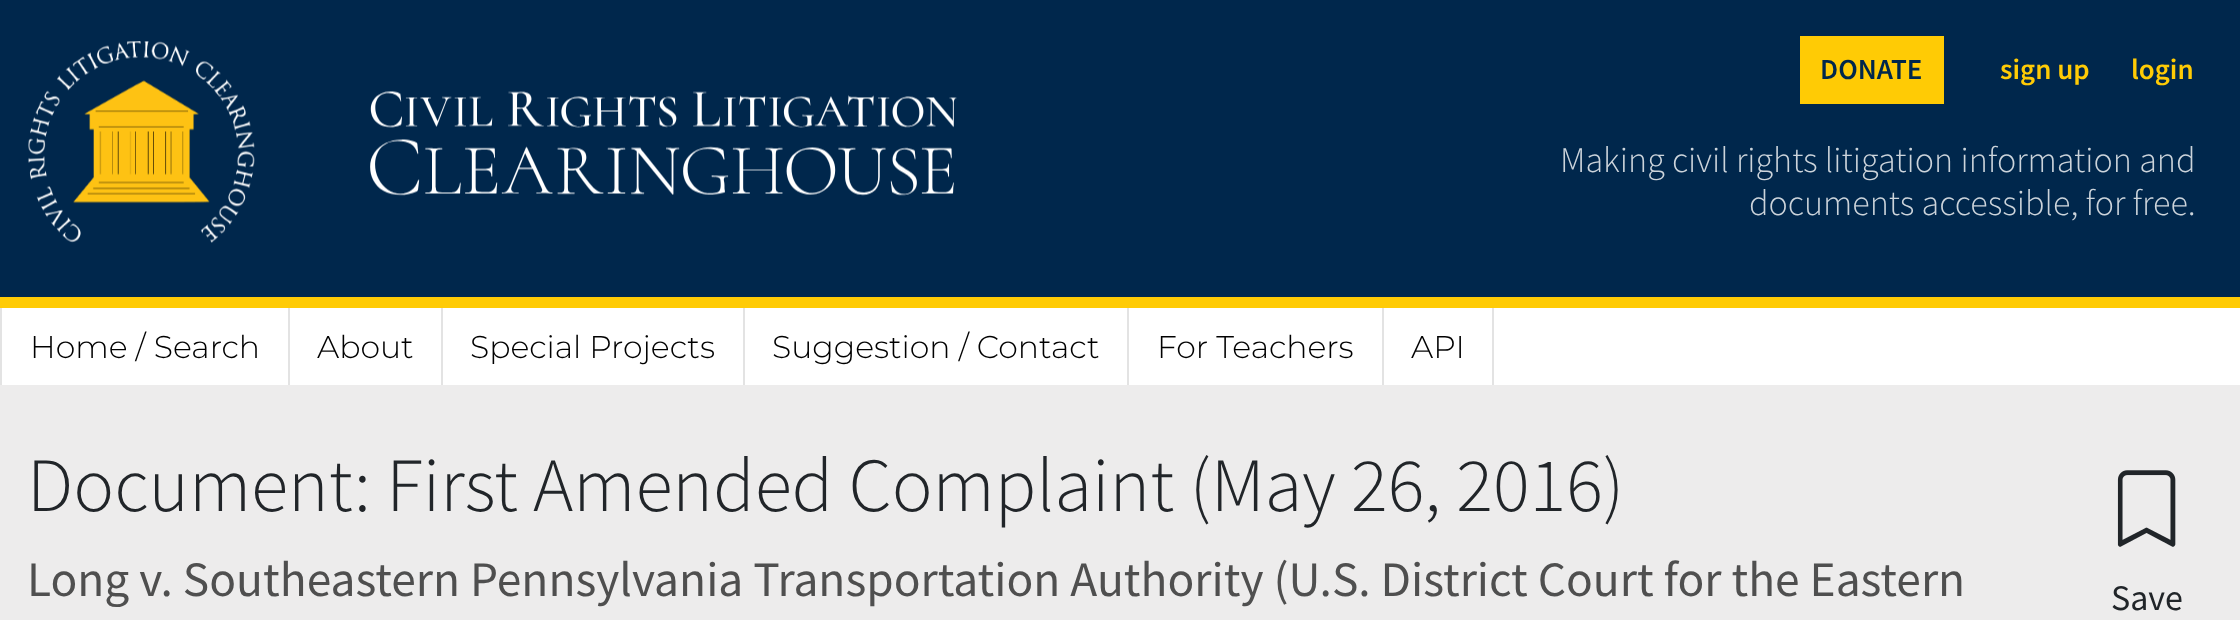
async function draw(canvas) {
  canvas.width = 2240;
  canvas.height = 620;
  const ctx = canvas.getContext('2d');
  ctx.miterLimit = 4;
  ctx.fontKerning = 'normal';
  function label(s, x, y, font, color) {
    ctx.font = font;
    ctx.fillStyle = color;
    ctx.fillText(s, x, y);
  }
  function rect(x, y, w, h, color) {
    ctx.fillStyle = color;
    ctx.fillRect(x, y, w, h);
  }
  async function image(src, x, y, w, h) {
    const img = new Image();
    img.src = src;
    await img.decode();
    ctx.drawImage(img, x, y, w, h);
  }

  rect(0, 0, 2240, 620, '#edecec');
  rect(0, 0, 2240, 297, '#00274c');
  rect(0, 297, 2240, 11, '#ffcb05');
  await image('assets/img1.png', 28, 41, 227, 202);
  await image('assets/img2.png', 370, 91, 587, 105);
  rect(1800, 36, 144, 68, '#ffcb05');
  label('DONATE', 1820, 79, '600 29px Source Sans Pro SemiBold', '#00274c');
  label('sign up', 2000, 79, '600 29px Source Sans Pro SemiBold', '#ffcb05');
  label('login', 2131, 79, '600 29px Source Sans Pro SemiBold', '#ffcb05');
  label('Making civil rights litigation information and', 1560, 172, '300 36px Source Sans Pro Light', '#ccd4db');
  label('documents accessible, for free.', 1749, 215, '300 36px Source Sans Pro Light', '#ccd4db');
  rect(2, 308, 2238, 77, '#fff');
  rect(288, 308, 2, 77, '#e3e3e3');
  rect(0, 308, 2, 77, '#e3e3e3');
  label('Home / Search', 30, 358, '300 31.5px Montserrat', '#000');
  rect(441, 308, 2, 77, '#e3e3e3');
  label('About', 317, 358, '300 31.5px Montserrat', '#000');
  rect(743, 308, 2, 77, '#e3e3e3');
  label('Special Projects', 470, 358, '300 31.5px Montserrat', '#000');
  rect(1127, 308, 2, 77, '#e3e3e3');
  label('Suggestion / Contact', 772, 358, '300 31.5px Montserrat', '#000');
  rect(1382, 308, 2, 77, '#e3e3e3');
  label('For Teachers', 1157, 358, '300 31.5px Montserrat', '#000');
  rect(1492, 308, 2, 77, '#e3e3e3');
  label('API', 1411, 358, '300 31.5px Montserrat', '#000');
  label('Document: First Amended Complaint (May 26, 2016)', 27, 511, '300 76.5px Source Sans Pro Light', '#212529');
  label('Long v. Southeastern Pennsylvania Transportation Authority (U.S. District Court for the Eastern', 27, 596, '49.5px Source Sans Pro', '#4f4f4f');
  await image('assets/img3.png', 2117, 470, 59, 77);
  label('Save', 2111, 610, '36px Source Sans Pro', '#212529');
}

draw(document.querySelector('canvas'));
